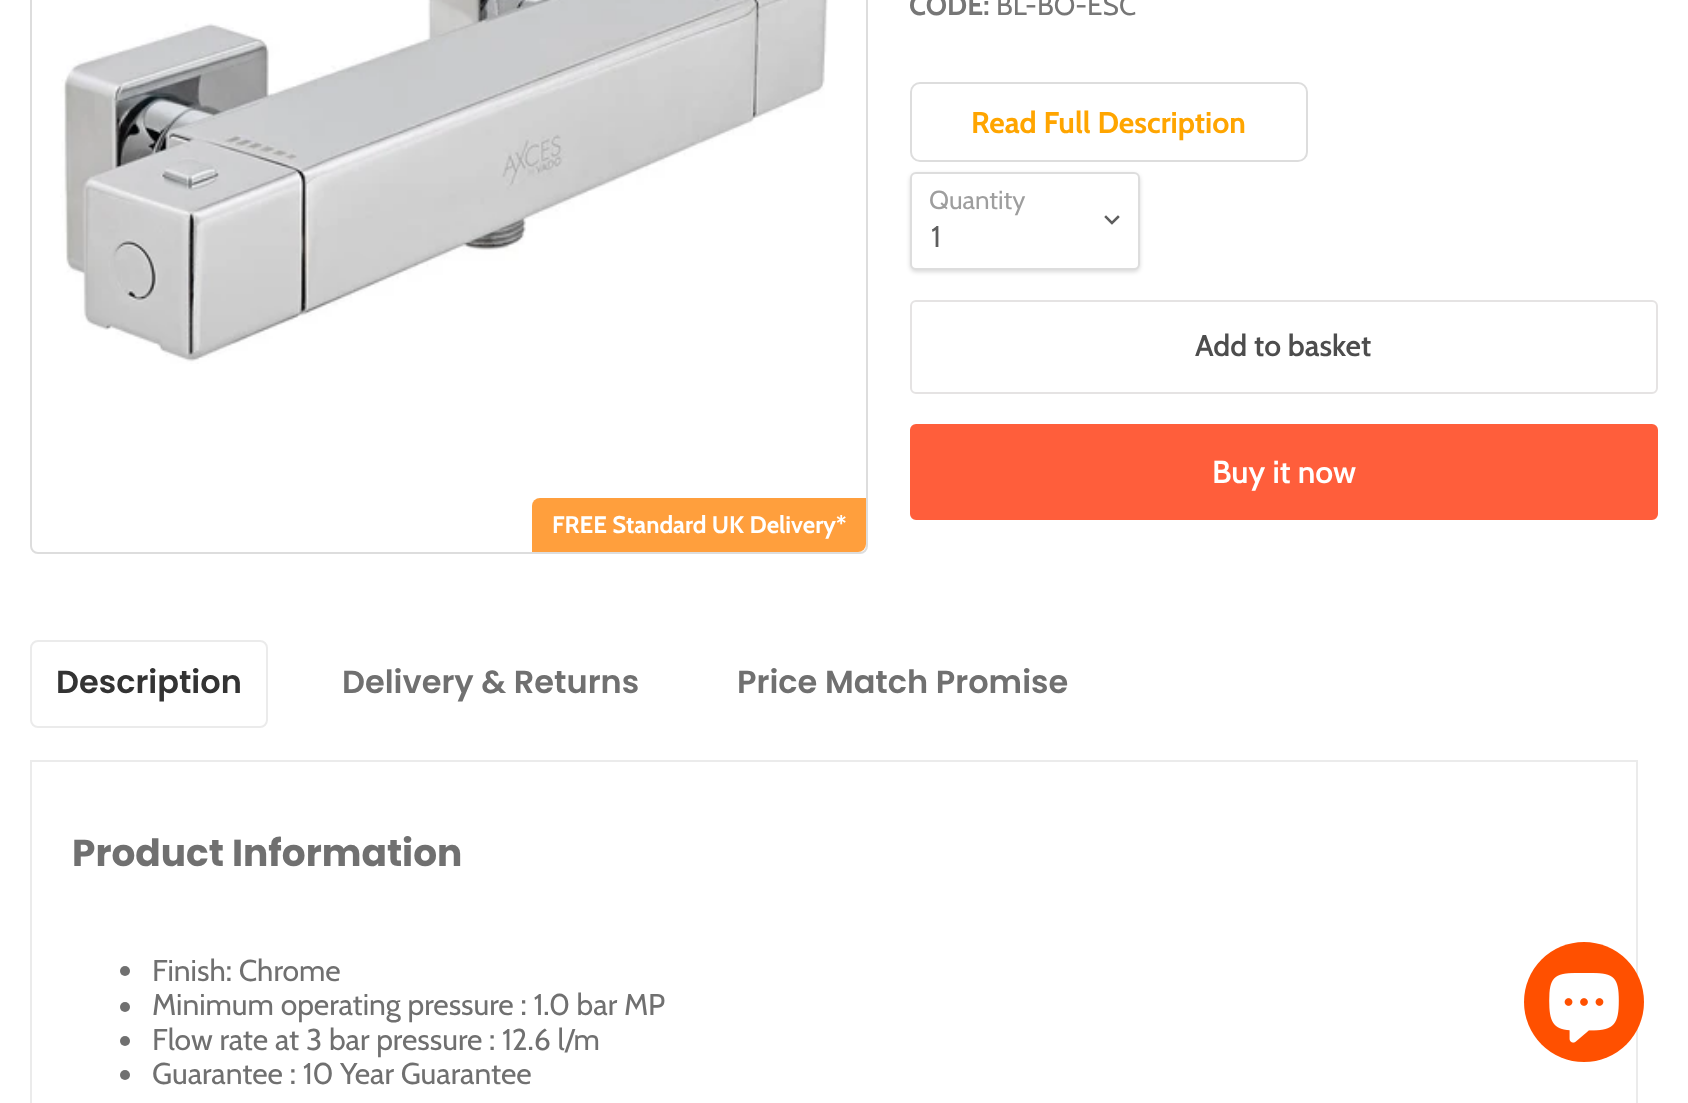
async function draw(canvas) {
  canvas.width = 1688;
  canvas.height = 1103;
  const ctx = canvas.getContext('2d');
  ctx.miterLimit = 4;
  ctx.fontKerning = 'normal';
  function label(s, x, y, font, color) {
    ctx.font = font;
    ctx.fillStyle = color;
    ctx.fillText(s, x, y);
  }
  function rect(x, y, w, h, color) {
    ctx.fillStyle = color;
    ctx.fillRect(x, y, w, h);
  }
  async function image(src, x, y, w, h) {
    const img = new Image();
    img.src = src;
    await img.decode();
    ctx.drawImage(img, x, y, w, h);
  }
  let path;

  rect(0, 0, 1688, 1103, '#fff');
  label('CODE:', 909, 15, 'bold 28px Cabin', '#767676');
  label('BL-BO-ESC', 996, 15, '28px Cabin', '#767676');
  ctx.beginPath();
  ctx.roundRect(911, 83, 396, 78, 9);
  ctx.strokeStyle = '#ddd';
  ctx.lineWidth = 2;
  ctx.stroke();
  label('Read Full Description', 971, 133, 'bold 30px Cabin', '#ffa500');
  ctx.fillStyle = '#00000026';
  ctx.filter = 'blur(2px)';
  ctx.beginPath();
  ctx.roundRect(910, 174, 230, 98, 6);
  ctx.fill();
  ctx.filter = 'none';
  ctx.fillStyle = '#fff';
  ctx.beginPath();
  ctx.roundRect(911, 173, 228, 96, 5);
  ctx.fill();
  ctx.stroke();
  label('Quantity', 929, 209, '26px Cabin', '#9e9e9e');
  path = new Path2D('M1112 223L1118 217M1112 223L1106 217');
  ctx.strokeStyle = '#5e5e5e';
  ctx.lineWidth = 2.5;
  ctx.lineCap = 'square';
  ctx.stroke(path);
  label('1', 931, 247, '30px Cabin', '#5e5e5e');
  ctx.beginPath();
  ctx.roundRect(911, 301, 746, 92, 5);
  ctx.strokeStyle = '#e5e3e3';
  ctx.lineWidth = 2;
  ctx.stroke();
  label('Add to basket', 1195, 356, '600 30px Cabin', '#4d4d4d');
  ctx.fillStyle = '#ff5e3b';
  ctx.beginPath();
  ctx.roundRect(911, 425, 746, 94, 5);
  ctx.fill();
  ctx.strokeStyle = '#ff5e3b';
  ctx.stroke();
  label('Buy it now', 1212, 483, '600 31.75px Cabin', '#fff');
  ctx.beginPath();
  ctx.roundRect(31, -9, 836, 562, 7);
  ctx.strokeStyle = '#ddd';
  ctx.stroke();
  await image('assets/img1.png', 60, 0, 768, 364);
  ctx.fillStyle = '#ff9f3d';
  ctx.beginPath();
  ctx.roundRect(532, 498, 334, 54, [8, 0, 8, 0]);
  ctx.fill();
  label('FREE Standard UK Delivery*', 552, 533, 'bold 24px Cabin', '#fff');
  ctx.beginPath();
  ctx.roundRect(31, 641, 236, 86, 7);
  ctx.strokeStyle = '#ebebeb';
  ctx.stroke();
  label('Description', 56, 693, '600 32px Poppins', '#333');
  label('Delivery & Returns', 342, 693, '600 32px Poppins', '#707070');
  label('Price Match Promise', 737, 693, '600 32px Poppins', '#707070');
  ctx.strokeRect(31, 761, 1606, 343);
  label('Product Information', 72, 866, 'bold 37.5px Poppins', '#707070');
  ctx.beginPath();
  ctx.arc(125, 971, 5, 0, 2 * Math.PI);
  ctx.fill();
  label('Finish: Chrome', 152, 981, '30px Cabin', '#707070');
  ctx.beginPath();
  ctx.arc(125, 1007, 5, 0, 2 * Math.PI);
  ctx.fill();
  label('Minimum operating pressure : 1.0 bar MP', 152, 1015, '30px Cabin', '#707070');
  ctx.beginPath();
  ctx.arc(125, 1041, 5, 0, 2 * Math.PI);
  ctx.fill();
  label('Flow rate at 3 bar pressure : 12.6 l/m', 152, 1050, '30px Cabin', '#707070');
  ctx.beginPath();
  ctx.arc(125, 1075, 5, 0, 2 * Math.PI);
  ctx.fill();
  label('Guarantee : 10 Year Guarantee', 152, 1084, '30px Cabin', '#707070');
  ctx.fillStyle = '#ff5000';
  ctx.beginPath();
  ctx.arc(1584, 1002, 60, 0, 2 * Math.PI);
  ctx.fill();
  await image('assets/img2.png', 1549, 973, 70, 70);
}

draw(document.querySelector('canvas'));
